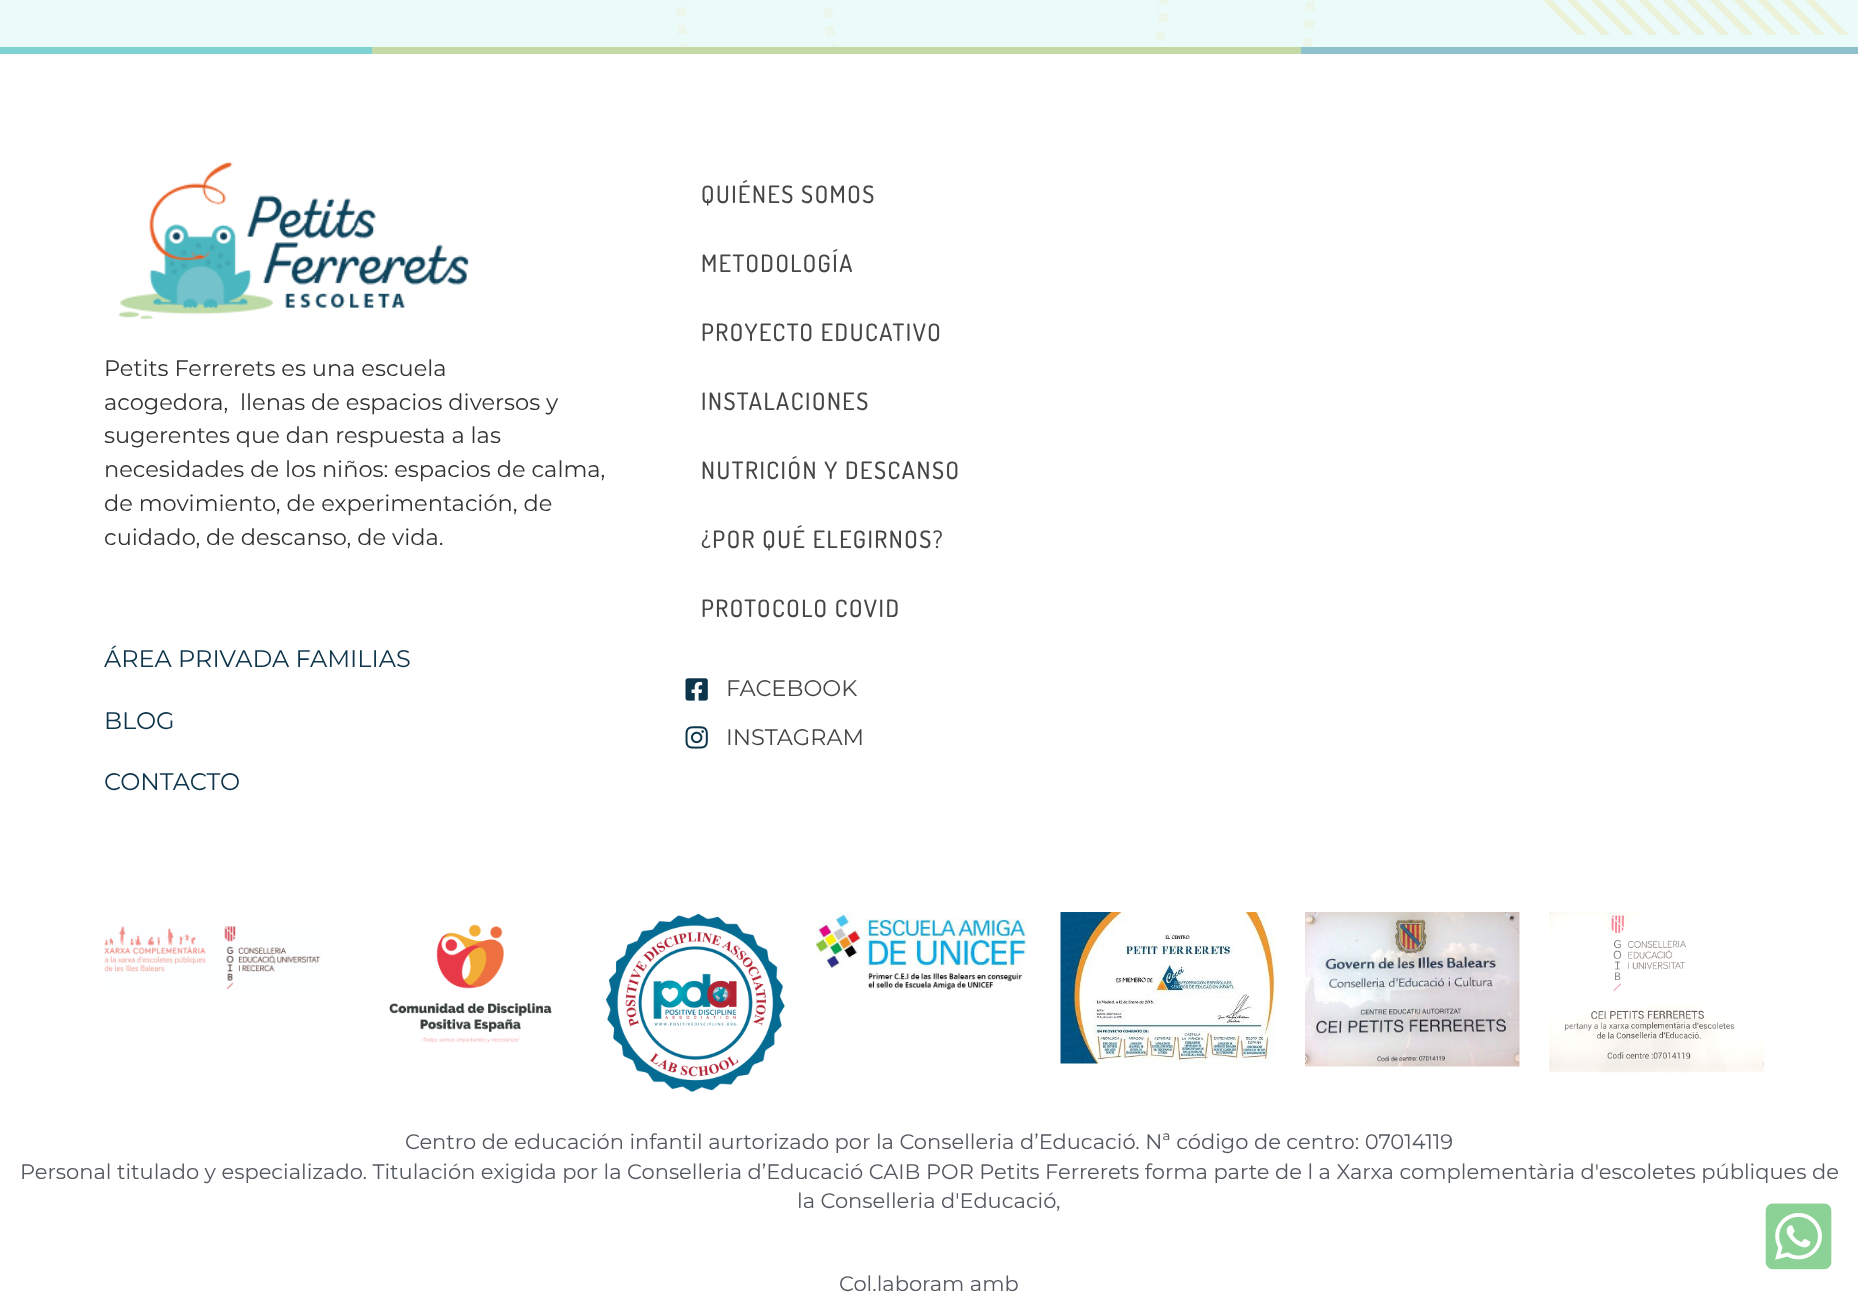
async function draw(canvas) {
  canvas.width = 1858;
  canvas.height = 1306;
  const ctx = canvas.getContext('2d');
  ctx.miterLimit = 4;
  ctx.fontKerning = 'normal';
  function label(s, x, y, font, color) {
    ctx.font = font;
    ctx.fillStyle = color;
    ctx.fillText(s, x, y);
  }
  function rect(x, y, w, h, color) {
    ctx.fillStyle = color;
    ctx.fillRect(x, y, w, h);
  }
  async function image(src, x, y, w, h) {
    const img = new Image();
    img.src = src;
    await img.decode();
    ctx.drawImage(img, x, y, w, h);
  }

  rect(0, 0, 1858, 1306, '#fff');
  rect(0, 0, 1858, 47, '#eafbfa');
  await image('assets/img1.png', 676, 0, 1173, 47);
  rect(0, 47, 372, 7, '#7dd3d1');
  rect(372, 47, 929, 7, '#c5d9a7');
  rect(1301, 47, 557, 7, '#8ec1c9');
  await image('assets/img2.png', 118, 161, 351, 159);
  label('Petits Ferrerets es una escuela', 104, 376, '22.5px Montserrat', '#333');
  label('acogedora,', 104, 410, '22.5px Montserrat', '#333');
  label('llenas de espacios diversos y', 240, 410, '22.5px Montserrat', '#333');
  label('sugerentes que dan respuesta a las', 104, 443, '22.5px Montserrat', '#333');
  label('necesidades de los niños: espacios de calma,', 104, 477, '22.5px Montserrat', '#333');
  label('de movimiento, de experimentación, de', 104, 511, '22.5px Montserrat', '#333');
  label('cuidado, de descanso, de vida.', 104, 545, '22.5px Montserrat', '#333');
  label('ÁREA PRIVADA FAMILIAS', 104, 667, '24px Montserrat', '#0d354b');
  label('BLOG', 104, 729, '24px Montserrat', '#0d354b');
  label('CONTACTO', 104, 790, '24px Montserrat', '#0d354b');
  ctx.letterSpacing = '1.5px';
  label('QUIÉNES SOMOS', 701, 203, '500 24px Dosis', '#464646');
  label('METODOLOGÍA', 701, 272, '500 24px Dosis', '#464646');
  label('PROYECTO EDUCATIVO', 701, 341, '500 24px Dosis', '#464646');
  label('INSTALACIONES', 701, 410, '500 24px Dosis', '#464646');
  label('NUTRICIÓN Y DESCANSO', 701, 479, '500 24px Dosis', '#464646');
  label('¿POR QUÉ ELEGIRNOS?', 701, 548, '500 24px Dosis', '#464646');
  label('PROTOCOLO COVID', 701, 617, '500 24px Dosis', '#464646');
  await image('assets/img3.png', 685, 678, 23, 23);
  ctx.letterSpacing = '0px';
  label('FACEBOOK', 726, 696, '22.5px Montserrat', '#464646');
  await image('assets/img4.png', 685, 726, 23, 23);
  label('INSTAGRAM', 726, 745, '22.5px Montserrat', '#464646');
  await image('assets/img5.png', 104, 926, 217, 64);
  await image('assets/img6.png', 389, 924, 163, 119);
  await image('assets/img7.png', 606, 913, 179, 179);
  await image('assets/img8.png', 816, 912, 211, 78);
  await image('assets/img9.png', 1060, 912, 215, 152);
  await image('assets/img10.png', 1305, 912, 215, 155);
  await image('assets/img11.png', 1549, 912, 215, 161);
  label('Centro de educación infantil aurtorizado por la Conselleria d’Educació. Nª código de centro: 07014119', 405, 1149, '21px Montserrat', '#54595f');
  label('Personal titulado y especializado. Titulación exigida por la Conselleria d’Educació CAIB POR Petits Ferrerets forma parte de l a Xarxa complementària d\'escoletes públiques de', 20, 1179, '21px Montserrat', '#54595f');
  label('la Conselleria d\'Educació,', 797, 1208, '21px Montserrat', '#54595f');
  label('Col.laboram amb', 839, 1291, '21px Montserrat', '#54595f');
  await image('assets/img12.png', 1765, 1203, 67, 67);
}

draw(document.querySelector('canvas'));
